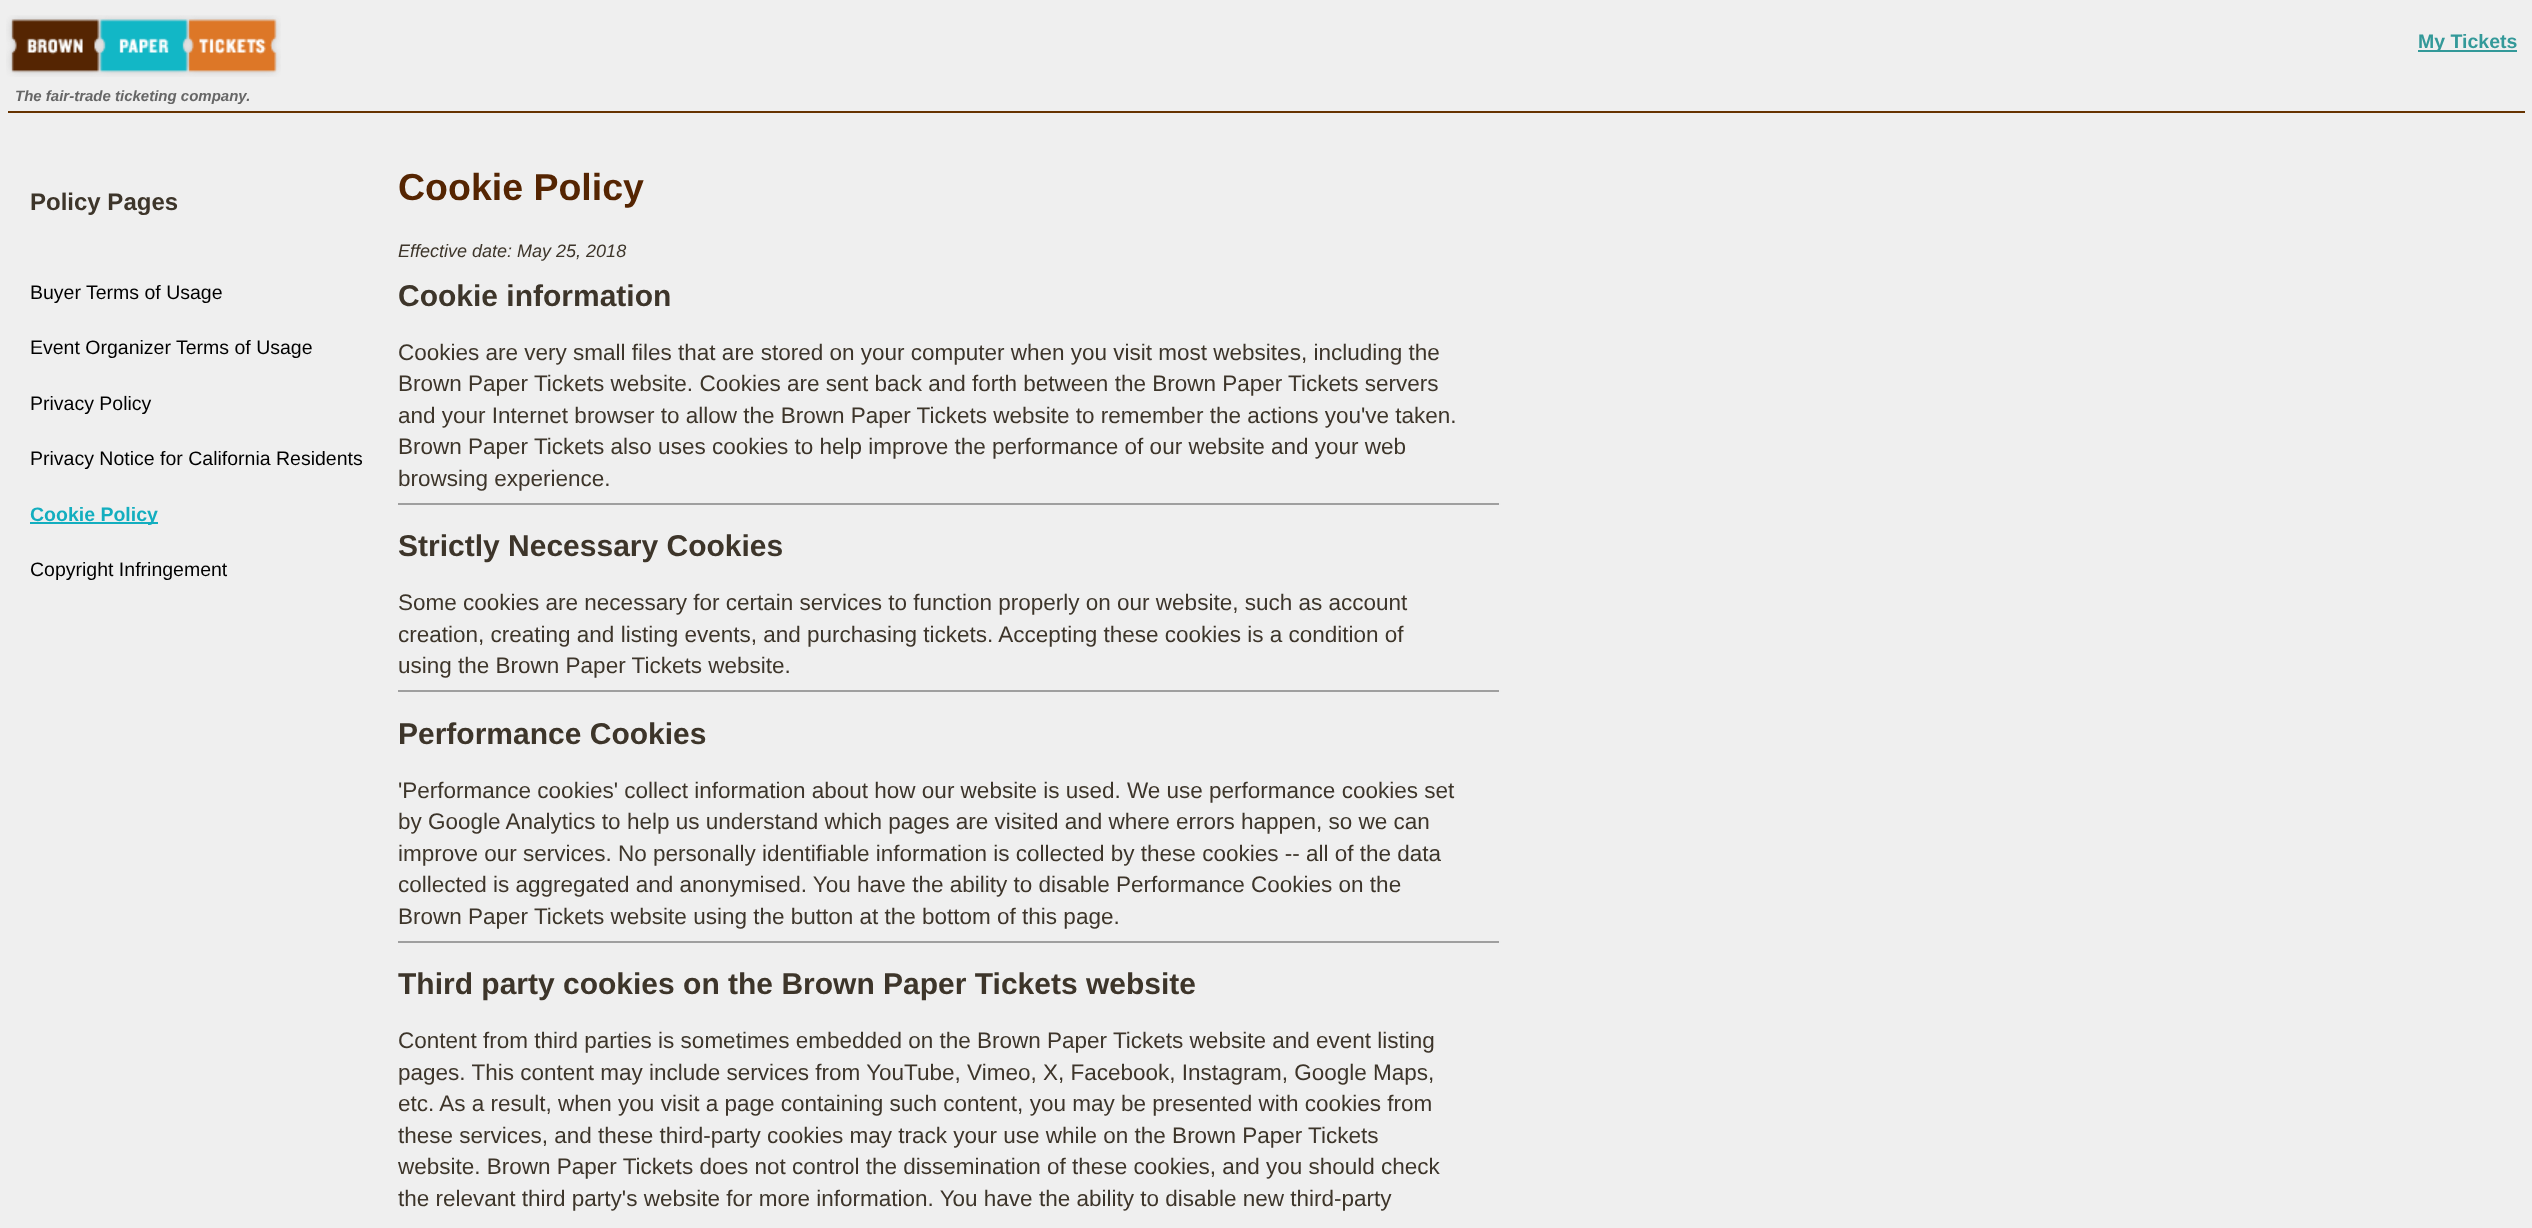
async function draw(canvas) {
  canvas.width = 2532;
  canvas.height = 1228;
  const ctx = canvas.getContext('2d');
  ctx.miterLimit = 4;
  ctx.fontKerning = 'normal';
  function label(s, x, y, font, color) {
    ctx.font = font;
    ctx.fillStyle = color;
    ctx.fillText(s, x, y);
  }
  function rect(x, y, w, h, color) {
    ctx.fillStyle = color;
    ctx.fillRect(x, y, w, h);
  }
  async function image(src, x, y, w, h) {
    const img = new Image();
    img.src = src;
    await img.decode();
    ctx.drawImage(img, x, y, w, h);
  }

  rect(0, 0, 2532, 1228, '#efefef');
  await image('assets/img1.png', 6, 15, 275, 62);
  rect(2418, 50, 99, 2, '#399');
  label('My Tickets', 2418, 48, 'bold 19.5px Liberation Sans', '#399');
  label('The fair-trade ticketing company.', 15, 101, 'italic bold 15px Liberation Sans', '#666');
  rect(8, 111, 2517, 2, '#630');
  label('Policy Pages', 30, 210, 'bold 24px Liberation Sans', '#3d352a');
  label('Buyer Terms of Usage', 30, 299, '19.5px Liberation Sans', '#000');
  label('Event Organizer Terms of Usage', 30, 354, '19.5px Liberation Sans', '#000');
  label('Privacy Policy', 30, 410, '19.5px Liberation Sans', '#000');
  label('Privacy Notice for California Residents', 30, 465, '19.5px Liberation Sans', '#000');
  rect(30, 522, 128, 2, '#13aebf');
  label('Cookie Policy', 30, 521, 'bold 19.5px Liberation Sans', '#13aebf');
  label('Copyright Infringement', 30, 576, '19.5px Liberation Sans', '#000');
  label('Cookie Policy', 398, 200, 'bold 37.5px Liberation Sans', '#552502');
  label('Effective date: May 25, 2018', 398, 257, 'italic 18px Liberation Sans', '#3d352a');
  label('Cookie information', 398, 306, 'bold 30px Liberation Sans', '#3d352a');
  label('Cookies are very small files that are stored on your computer when you visit most websites, including the', 398, 360, '22.5px Liberation Sans', '#3d352a');
  label('Brown Paper Tickets website. Cookies are sent back and forth between the Brown Paper Tickets servers', 398, 391, '22.5px Liberation Sans', '#3d352a');
  label('and your Internet browser to allow the Brown Paper Tickets website to remember the actions you\'ve taken.', 398, 423, '22.5px Liberation Sans', '#3d352a');
  label('Brown Paper Tickets also uses cookies to help improve the performance of our website and your web', 398, 454, '22.5px Liberation Sans', '#3d352a');
  label('browsing experience.', 398, 486, '22.5px Liberation Sans', '#3d352a');
  rect(398, 503, 1102, 2, '#9f9f9f');
  rect(1499, 503, 2, 2, '#eee');
  label('Strictly Necessary Cookies', 398, 556, 'bold 30px Liberation Sans', '#3d352a');
  label('Some cookies are necessary for certain services to function properly on our website, such as account', 398, 610, '22.5px Liberation Sans', '#3d352a');
  label('creation, creating and listing events, and purchasing tickets. Accepting these cookies is a condition of', 398, 642, '22.5px Liberation Sans', '#3d352a');
  label('using the Brown Paper Tickets website.', 398, 673, '22.5px Liberation Sans', '#3d352a');
  rect(398, 690, 1102, 2, '#9f9f9f');
  rect(1499, 690, 2, 2, '#eee');
  label('Performance Cookies', 398, 744, 'bold 30px Liberation Sans', '#3d352a');
  label('\'Performance cookies\' collect information about how our website is used. We use performance cookies set', 398, 798, '22.5px Liberation Sans', '#3d352a');
  label('by Google Analytics to help us understand which pages are visited and where errors happen, so we can', 398, 829, '22.5px Liberation Sans', '#3d352a');
  label('improve our services. No personally identifiable information is collected by these cookies -- all of the data', 398, 861, '22.5px Liberation Sans', '#3d352a');
  label('collected is aggregated and anonymised. You have the ability to disable Performance Cookies on the', 398, 892, '22.5px Liberation Sans', '#3d352a');
  label('Brown Paper Tickets website using the button at the bottom of this page.', 398, 924, '22.5px Liberation Sans', '#3d352a');
  rect(398, 941, 1102, 2, '#9f9f9f');
  rect(1499, 941, 2, 2, '#eee');
  label('Third party cookies on the Brown Paper Tickets website', 398, 994, 'bold 30px Liberation Sans', '#3d352a');
  label('Content from third parties is sometimes embedded on the Brown Paper Tickets website and event listing', 398, 1048, '22.5px Liberation Sans', '#3d352a');
  label('pages. This content may include services from YouTube, Vimeo, X, Facebook, Instagram, Google Maps,', 398, 1080, '22.5px Liberation Sans', '#3d352a');
  label('etc. As a result, when you visit a page containing such content, you may be presented with cookies from', 398, 1111, '22.5px Liberation Sans', '#3d352a');
  label('these services, and these third-party cookies may track your use while on the Brown Paper Tickets', 398, 1143, '22.5px Liberation Sans', '#3d352a');
  label('website. Brown Paper Tickets does not control the dissemination of these cookies, and you should check', 398, 1174, '22.5px Liberation Sans', '#3d352a');
  label('the relevant third party\'s website for more information. You have the ability to disable new third-party', 398, 1206, '22.5px Liberation Sans', '#3d352a');
}

draw(document.querySelector('canvas'));
